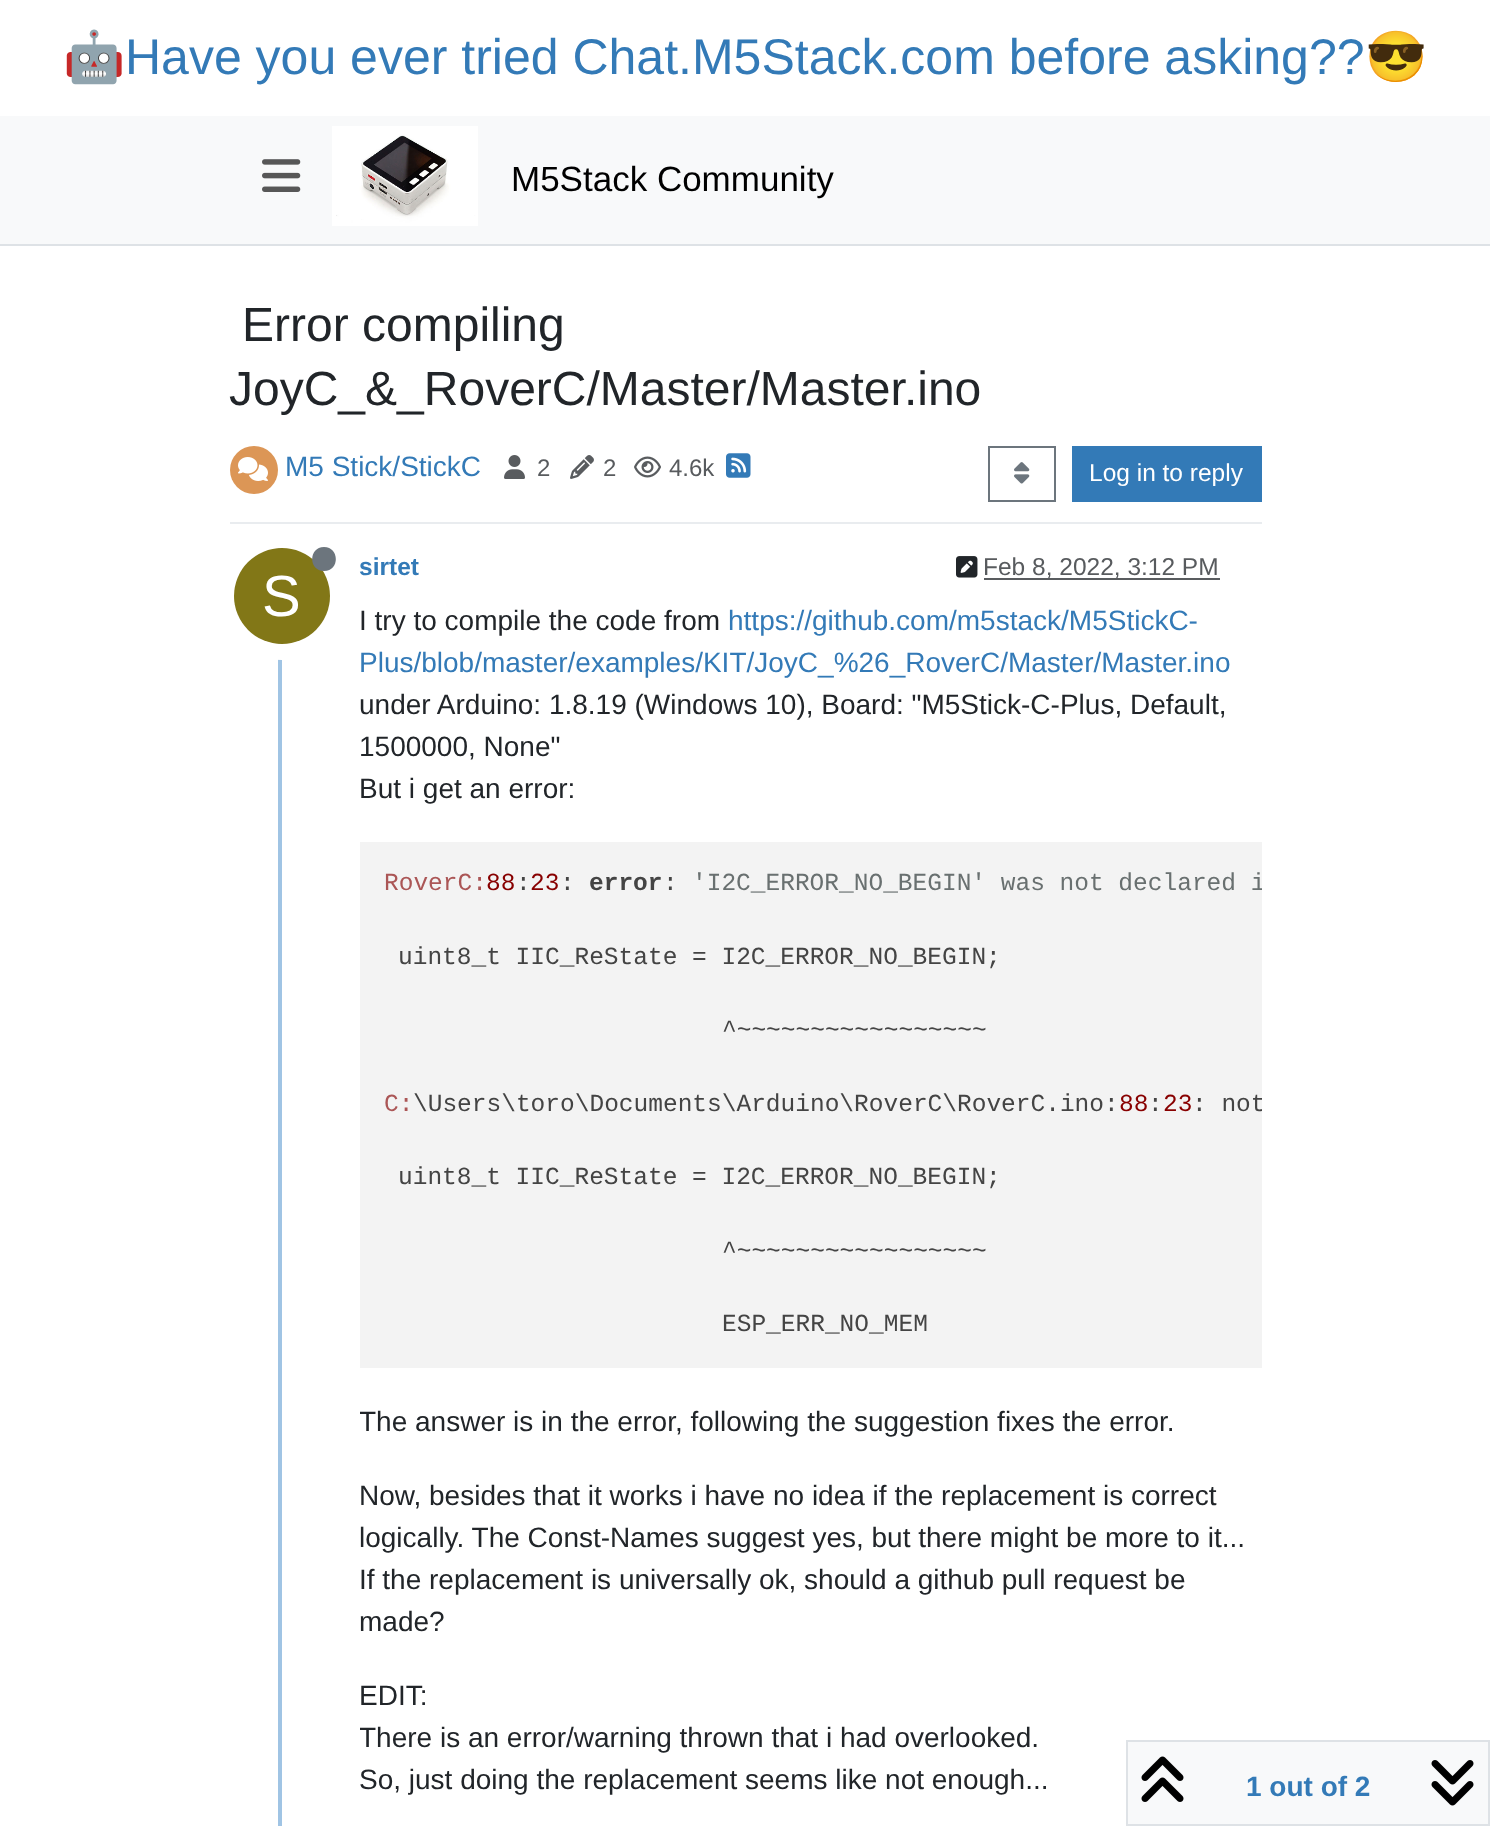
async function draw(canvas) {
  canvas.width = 1490;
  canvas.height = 1826;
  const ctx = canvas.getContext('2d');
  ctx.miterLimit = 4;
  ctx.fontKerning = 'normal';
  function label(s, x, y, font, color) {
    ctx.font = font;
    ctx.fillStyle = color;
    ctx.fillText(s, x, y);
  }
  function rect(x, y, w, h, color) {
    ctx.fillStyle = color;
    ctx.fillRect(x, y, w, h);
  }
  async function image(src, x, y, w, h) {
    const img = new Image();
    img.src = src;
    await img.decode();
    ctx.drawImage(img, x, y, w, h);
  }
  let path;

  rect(0, 0, 1490, 1826, '#fff');
  label('🤖', 63, 74, '50px Noto Color Emoji', '#337ab7');
  label('Have you ever tried Chat.M5Stack.com before asking??', 125, 74, '50px Liberation Sans', '#337ab7');
  label('😎', 1365, 74, '50px Noto Color Emoji', '#337ab7');
  rect(0, 116, 1490, 128, '#f8f9fa');
  rect(0, 244, 1490, 2, '#dee2e6');
  await image('assets/img1.png', 262, 159, 39, 33);
  await image('assets/img2.png', 332, 126, 146, 100);
  label('M5Stack Community', 511, 191, '35px Liberation Sans', '#000');
  label('Error compiling', 242, 341, '48px Liberation Sans', '#212529');
  label('JoyC_&_RoverC/Master/Master.ino', 229, 405, '48px Liberation Sans', '#212529');
  rect(230, 522, 1032, 2, '#e9ecef');
  ctx.fillStyle = '#dc9656';
  ctx.beginPath();
  ctx.arc(254, 470, 24, 0, 2 * Math.PI);
  ctx.fill();
  await image('assets/img3.png', 238, 457, 30, 24);
  label('M5 Stick/StickC', 285, 476, '28px Liberation Sans', '#337ab7');
  await image('assets/img4.png', 504, 455, 21, 24);
  label('2', 537, 476, '24px Liberation Sans', '#585b5e');
  await image('assets/img5.png', 570, 455, 24, 24);
  label('2', 603, 476, '24px Liberation Sans', '#585b5e');
  await image('assets/img6.png', 634, 456, 27, 22);
  label('4.6k', 669, 476, '24px Liberation Sans', '#585b5e');
  await image('assets/img7.png', 726, 453, 25, 25);
  ctx.strokeStyle = '#6c757d';
  ctx.lineWidth = 2;
  ctx.strokeRect(989, 447, 66, 54);
  await image('assets/img8.png', 1014, 462, 16, 22);
  rect(1072, 446, 190, 56, '#337ab7');
  label('Log in to reply', 1089, 481, '24.5px Liberation Sans', '#fff');
  rect(278, 544, 4, 1282, '#a0c4e4');
  label('sirtet', 359, 575, 'bold 24.5px Liberation Sans', '#337ab7');
  await image('assets/img9.png', 956, 556, 22, 22);
  rect(984, 578, 236, 2, '#595c5f');
  label('Feb 8, 2022, 3:12 PM', 983, 575, '24.5px Liberation Sans', '#585b5e');
  ctx.beginPath();
  ctx.arc(282, 596, 56, 0, 2 * Math.PI);
  ctx.strokeStyle = '#fff';
  ctx.lineWidth = 16;
  ctx.stroke();
  ctx.fillStyle = '#827717';
  ctx.beginPath();
  ctx.arc(282, 596, 48, 0, 2 * Math.PI);
  ctx.fill();
  ctx.fillStyle = '#6c757d';
  path = new Path2D('M324 571C340 571 339.5 547 324 547C308.5 547 308 571 324 571Z');
  ctx.fill(path);
  label('S', 262, 616, '58px Liberation Sans', '#fff');
  label('I try to compile the code from', 359, 630, '28px Liberation Sans', '#212529');
  label('https://github.com/m5stack/M5StickC-', 728, 630, '28px Liberation Sans', '#337ab7');
  label('Plus/blob/master/examples/KIT/JoyC_%26_RoverC/Master/Master.ino', 359, 672, '28px Liberation Sans', '#337ab7');
  label('under Arduino: 1.8.19 (Windows 10), Board: "M5Stick-C-Plus, Default,', 359, 714, '28px Liberation Sans', '#212529');
  label('1500000, None"', 359, 756, '28px Liberation Sans', '#212529');
  label('But i get an error:', 359, 798, '28px Liberation Sans', '#212529');
  rect(360, 842, 902, 526, '#f3f3f3');
  label('RoverC:', 384, 890, '24.5px Liberation Mono', '#ab5656');
  label('88 23', 486, 890, '24.5px Liberation Mono', '#800');
  label('error', 589, 890, 'bold 24.5px Liberation Mono', '#444');
  ctx.save();
  ctx.beginPath();
  ctx.rect(360, 842, 902, 526);
  ctx.clip();
  label('\'I2C_ERROR_NO_BEGIN\' was not declared i', 692, 890, '24.5px Liberation Mono', '#697070');
  ctx.restore();
  label(':', 516, 890, '24.5px Liberation Mono', '#444');
  label(':', 560, 890, '24.5px Liberation Mono', '#444');
  label(':', 663, 890, '24.5px Liberation Mono', '#444');
  label('uint8_t IIC_ReState = I2C_ERROR_NO_BEGIN;', 398, 964, '24.5px Liberation Mono', '#444');
  label('^~~~~~~~~~~~~~~~~~', 722, 1037, '24.5px Liberation Mono', '#444');
  label('C:', 384, 1111, '24.5px Liberation Mono', '#ab5656');
  label('\\Users\\toro\\Documents\\Arduino\\RoverC\\RoverC.ino:', 413, 1111, '24.5px Liberation Mono', '#444');
  label('88 23', 1119, 1111, '24.5px Liberation Mono', '#800');
  ctx.save();
  ctx.beginPath();
  ctx.rect(360, 842, 902, 526);
  ctx.clip();
  label(': not', 1192, 1111, '24.5px Liberation Mono', '#444');
  ctx.restore();
  label(':', 1148, 1111, '24.5px Liberation Mono', '#444');
  label('uint8_t IIC_ReState = I2C_ERROR_NO_BEGIN;', 398, 1184, '24.5px Liberation Mono', '#444');
  label('^~~~~~~~~~~~~~~~~~', 722, 1258, '24.5px Liberation Mono', '#444');
  label('ESP_ERR_NO_MEM', 722, 1331, '24.5px Liberation Mono', '#444');
  ctx.save();
  ctx.beginPath();
  ctx.rect(360, 600, 902, 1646);
  ctx.clip();
  label('The answer is in the error, following the suggestion fixes the error.', 359, 1431, '28px Liberation Sans', '#212529');
  ctx.restore();
  label('Now, besides that it works i have no idea if the replacement is correct', 359, 1505, '28px Liberation Sans', '#212529');
  label('logically. The Const-Names suggest yes, but there might be more to it...', 359, 1547, '28px Liberation Sans', '#212529');
  label('If the replacement is universally ok, should a github pull request be', 359, 1589, '28px Liberation Sans', '#212529');
  label('made?', 359, 1631, '28px Liberation Sans', '#212529');
  label('EDIT:', 359, 1705, '28px Liberation Sans', '#212529');
  ctx.save();
  ctx.beginPath();
  ctx.rect(360, 600, 902, 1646);
  ctx.clip();
  label('There is an error/warning thrown that i had overlooked.', 359, 1747, '28px Liberation Sans', '#212529');
  ctx.restore();
  label('So, just doing the replacement seems like not enough...', 359, 1789, '28px Liberation Sans', '#212529');
  ctx.fillStyle = '#f8f9fa';
  ctx.beginPath();
  ctx.rect(1127, 1741, 362, 84);
  ctx.fill();
  ctx.strokeStyle = '#dee2e6';
  ctx.lineWidth = 2;
  ctx.stroke();
  await image('assets/img10.png', 1141, 1756, 43, 46);
  label('1 out of 2', 1246, 1796, 'bold 28px Liberation Sans', '#337ab7');
  await image('assets/img11.png', 1431, 1760, 43, 46);
}

draw(document.querySelector('canvas'));
